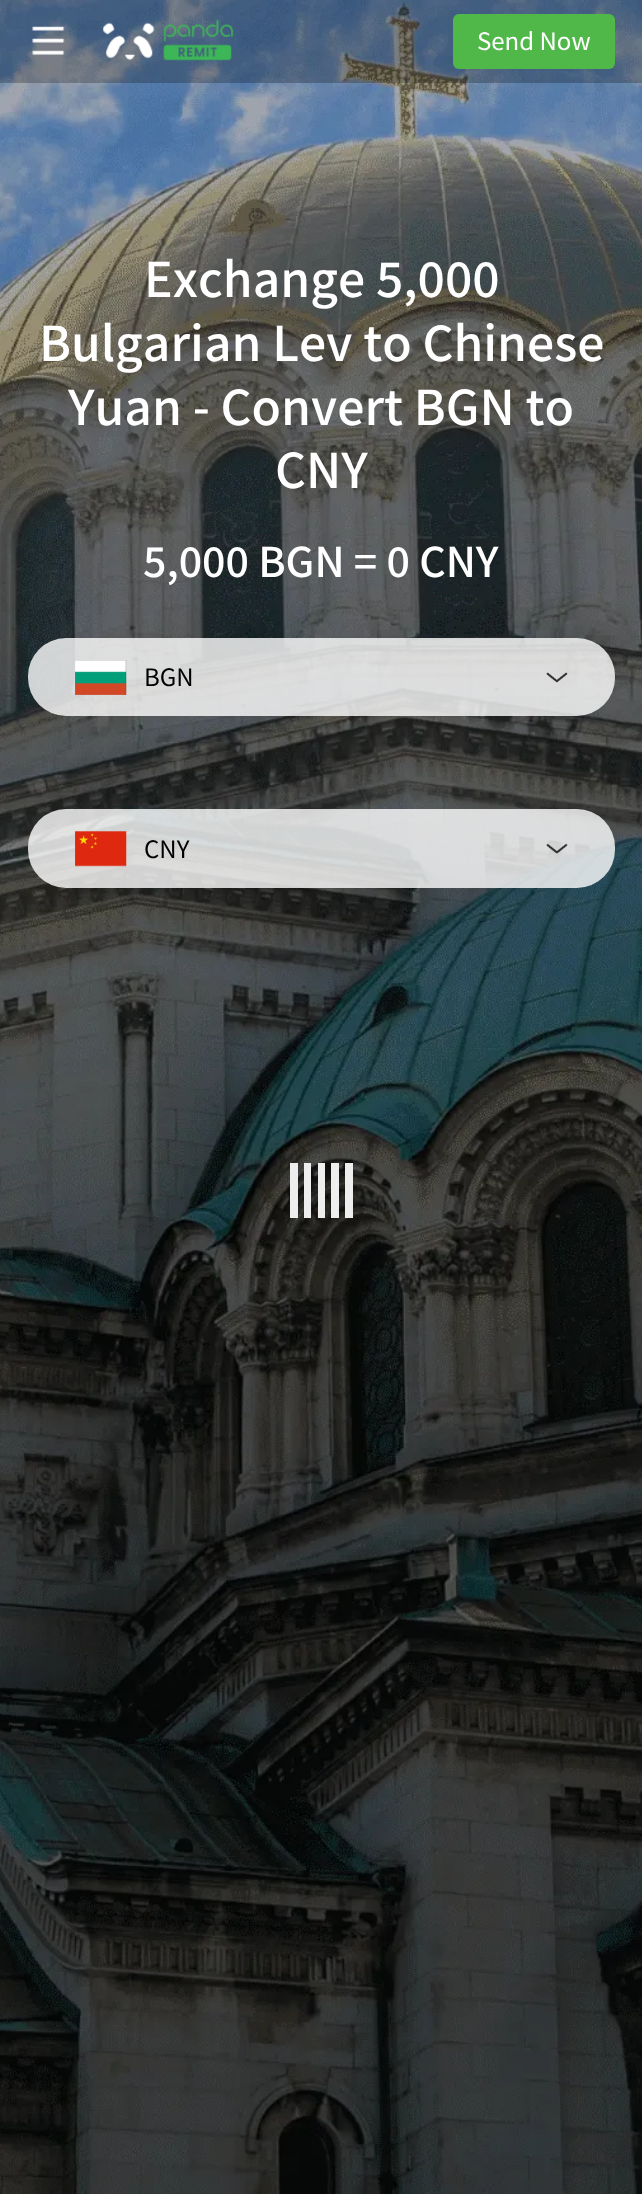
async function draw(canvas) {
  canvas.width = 642;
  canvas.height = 2194;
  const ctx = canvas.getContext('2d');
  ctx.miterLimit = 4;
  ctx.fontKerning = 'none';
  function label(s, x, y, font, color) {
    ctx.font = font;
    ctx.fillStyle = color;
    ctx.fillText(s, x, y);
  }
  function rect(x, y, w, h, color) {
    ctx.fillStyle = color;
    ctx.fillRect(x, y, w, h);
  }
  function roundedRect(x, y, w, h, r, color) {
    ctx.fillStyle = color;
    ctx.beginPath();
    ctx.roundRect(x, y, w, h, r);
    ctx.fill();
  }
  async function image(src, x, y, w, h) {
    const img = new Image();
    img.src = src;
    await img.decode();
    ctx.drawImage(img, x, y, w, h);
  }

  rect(0, 0, 642, 2194, '#fff');
  await image('assets/img1.png', 0, 0, 642, 2194);
  rect(0, 0, 642, 83, '#0000003d');
  await image('assets/img2.png', 32, 26, 33, 29);
  await image('assets/img3.png', 102, 19, 132, 42);
  roundedRect(453, 14, 162, 55, 6, '#50b848');
  label('Send Now', 477, 50, '24px Noto Sans CJK SC', '#fff');
  label('Exchange 5,000', 144, 297, '500 48px Noto Sans CJK SC', '#fff');
  label('Bulgarian Lev to Chinese', 39, 361, '500 48px Noto Sans CJK SC', '#fff');
  label('Yuan - Convert BGN to', 68, 425, '500 48px Noto Sans CJK SC', '#fff');
  label('CNY', 275, 488, '500 48px Noto Sans CJK SC', '#fff');
  label('5,000 BGN = 0 CNY', 143, 577, '500 41.1px Noto Sans CJK SC', '#fff');
  roundedRect(28, 638, 587, 78, 38, '#ffffffcc');
  await image('assets/img4.png', 75, 660, 52, 35);
  label('BGN', 144, 686, '24px Noto Sans CJK SC', '#000');
  await image('assets/img5.png', 546, 672, 22, 11);
  roundedRect(28, 809, 587, 79, 38, '#ffffffcc');
  await image('assets/img6.png', 75, 831, 52, 36);
  label('CNY', 144, 858, '24px Noto Sans CJK SC', '#000');
  await image('assets/img7.png', 546, 843, 22, 11);
  rect(290, 1163, 8, 55, '#eee');
  rect(304, 1163, 7, 55, '#eee');
  rect(318, 1163, 7, 55, '#eee');
  rect(331, 1163, 8, 55, '#eee');
  rect(345, 1163, 8, 55, '#eee');
}

draw(document.querySelector('canvas'));
